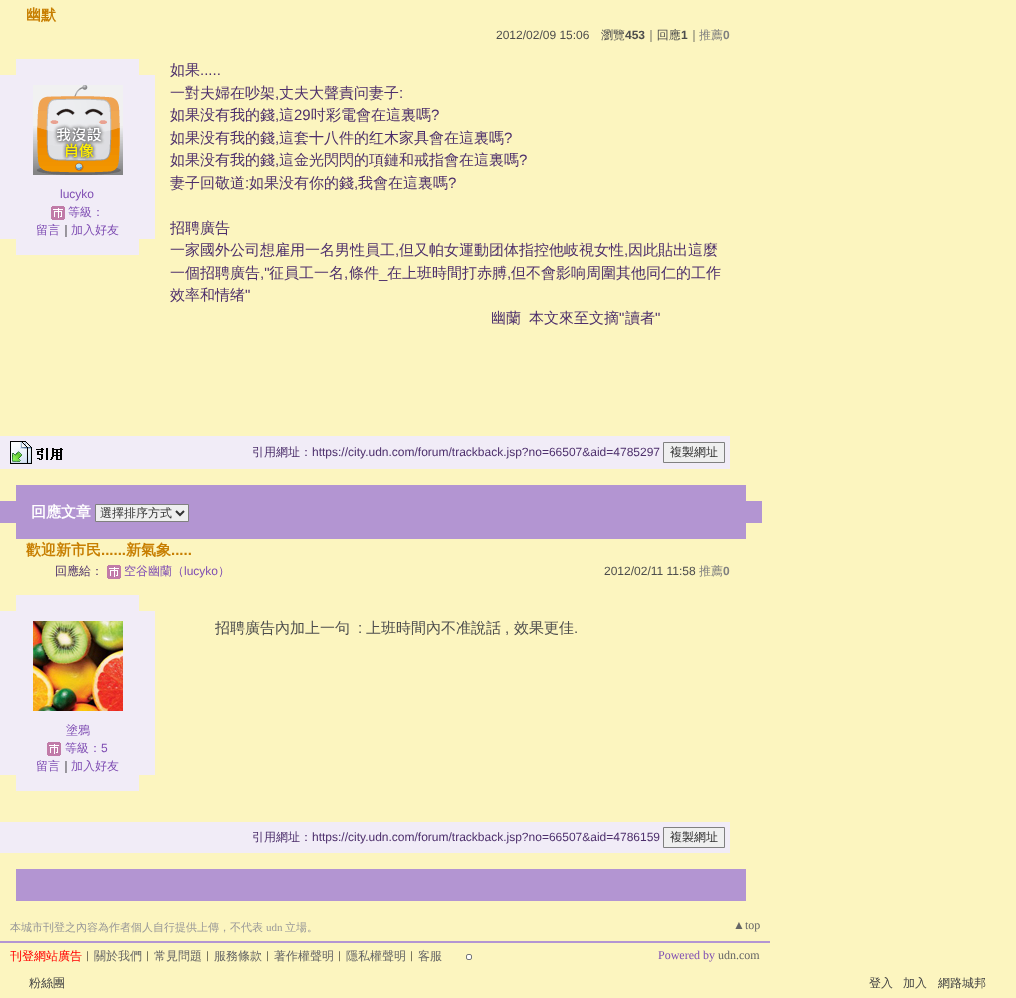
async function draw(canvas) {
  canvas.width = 1016;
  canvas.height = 998;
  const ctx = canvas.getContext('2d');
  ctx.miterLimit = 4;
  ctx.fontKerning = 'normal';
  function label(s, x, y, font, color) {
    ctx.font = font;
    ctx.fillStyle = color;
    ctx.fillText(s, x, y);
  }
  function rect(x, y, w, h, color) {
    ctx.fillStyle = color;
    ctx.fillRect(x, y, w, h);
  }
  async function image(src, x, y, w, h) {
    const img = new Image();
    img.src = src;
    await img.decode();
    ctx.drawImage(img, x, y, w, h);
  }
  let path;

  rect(0, 0, 1016, 998, '#fcf5bf');
  label('幽默', 26, 20, 'bold 15px WenQuanYi Zen Hei', '#c77e00');
  label('2012/02/09 15:06', 496, 39, '12px Liberation Sans', '#4d4d4d');
  label('瀏覽', 601, 39, '500 12px WenQuanYi Zen Hei', '#4d4d4d');
  label('453', 625, 39, 'bold 12px Liberation Sans', '#4d4d4d');
  label('｜回應', 645, 39, '500 12px WenQuanYi Zen Hei', '#4d4d4d');
  label('1', 681, 39, 'bold 12px Liberation Sans', '#4d4d4d');
  label('｜', 688, 39, '500 12px WenQuanYi Zen Hei', '#4d4d4d');
  label('推薦', 699, 39, '500 12px WenQuanYi Zen Hei', '#808080');
  label('0', 723, 39, 'bold 12px Liberation Sans', '#808080');
  rect(16, 59, 123, 16, '#f1ecf7');
  rect(0, 75, 155, 164, '#f1ecf7');
  await image('assets/img1.png', 33, 85, 90, 90);
  label('lucyko', 60, 198, '12px Liberation Sans', '#7f4db3');
  await image('assets/img2.png', 51, 206, 14, 14);
  label('等級：', 68, 216, '500 12px WenQuanYi Zen Hei', '#7f4db3');
  label('留言', 36, 234, '500 12px WenQuanYi Zen Hei', '#7f4db3');
  label('｜', 60, 234, '500 12px WenQuanYi Zen Hei', '#000');
  label('加入好友', 71, 234, '500 12px WenQuanYi Zen Hei', '#7f4db3');
  rect(16, 239, 123, 16, '#f1ecf7');
  label('如果', 170, 75, '500 15px WenQuanYi Zen Hei', '#4d2f6c');
  label('.....', 200, 75, '15px Liberation Sans', '#4d2f6c');
  label('一對夫婦在吵架', 170, 98, '500 15px WenQuanYi Zen Hei', '#4d2f6c');
  label(',', 275, 98, '15px Liberation Sans', '#4d2f6c');
  label('丈夫大聲責问妻子', 279, 98, '500 15px WenQuanYi Zen Hei', '#4d2f6c');
  label(':', 399, 98, '15px Liberation Sans', '#4d2f6c');
  label('如果没有我的錢', 170, 120, '500 15px WenQuanYi Zen Hei', '#4d2f6c');
  label(',', 275, 120, '15px Liberation Sans', '#4d2f6c');
  label('這', 279, 120, '500 15px WenQuanYi Zen Hei', '#4d2f6c');
  label('29', 294, 120, '15px Liberation Sans', '#4d2f6c');
  label('吋彩電會在這裏嗎', 311, 120, '500 15px WenQuanYi Zen Hei', '#4d2f6c');
  label('?', 431, 120, '15px Liberation Sans', '#4d2f6c');
  label('如果没有我的錢', 170, 143, '500 15px WenQuanYi Zen Hei', '#4d2f6c');
  label(',', 275, 143, '15px Liberation Sans', '#4d2f6c');
  label('這套十八件的红木家具會在這裏嗎', 279, 143, '500 15px WenQuanYi Zen Hei', '#4d2f6c');
  label('?', 504, 143, '15px Liberation Sans', '#4d2f6c');
  label('如果没有我的錢', 170, 165, '500 15px WenQuanYi Zen Hei', '#4d2f6c');
  label(',', 275, 165, '15px Liberation Sans', '#4d2f6c');
  label('這金光閃閃的項鏈和戒指會在這裏嗎', 279, 165, '500 15px WenQuanYi Zen Hei', '#4d2f6c');
  label('?', 519, 165, '15px Liberation Sans', '#4d2f6c');
  label('妻子回敬道', 170, 188, '500 15px WenQuanYi Zen Hei', '#4d2f6c');
  label(':', 245, 188, '15px Liberation Sans', '#4d2f6c');
  label('如果没有你的錢', 249, 188, '500 15px WenQuanYi Zen Hei', '#4d2f6c');
  label(',', 354, 188, '15px Liberation Sans', '#4d2f6c');
  label('我會在這裏嗎', 358, 188, '500 15px WenQuanYi Zen Hei', '#4d2f6c');
  label('?', 448, 188, '15px Liberation Sans', '#4d2f6c');
  label('招聘廣告', 170, 233, '500 15px WenQuanYi Zen Hei', '#4d2f6c');
  label('一家國外公司想雇用一名男性員工', 170, 255, '500 15px WenQuanYi Zen Hei', '#4d2f6c');
  label(',', 395, 255, '15px Liberation Sans', '#4d2f6c');
  label('但又帕女運動团体指控他岐視女性', 399, 255, '500 15px WenQuanYi Zen Hei', '#4d2f6c');
  label(',', 624, 255, '15px Liberation Sans', '#4d2f6c');
  label('因此貼出這麼', 628, 255, '500 15px WenQuanYi Zen Hei', '#4d2f6c');
  label('一個招聘廣告', 170, 278, '500 15px WenQuanYi Zen Hei', '#4d2f6c');
  label(',"', 260, 278, '15px Liberation Sans', '#4d2f6c');
  label('征員工一名', 269, 278, '500 15px WenQuanYi Zen Hei', '#4d2f6c');
  label(',', 344, 278, '15px Liberation Sans', '#4d2f6c');
  label('條件', 349, 278, '500 15px WenQuanYi Zen Hei', '#4d2f6c');
  label('_', 379, 278, '15px Liberation Sans', '#4d2f6c');
  label('在上班時間打赤膊', 387, 278, '500 15px WenQuanYi Zen Hei', '#4d2f6c');
  label(',', 507, 278, '15px Liberation Sans', '#4d2f6c');
  label('但不會影响周圍其他同仁的工作', 511, 278, '500 15px WenQuanYi Zen Hei', '#4d2f6c');
  label('效率和情绪', 170, 300, '500 15px WenQuanYi Zen Hei', '#4d2f6c');
  label('"', 245, 300, '15px Liberation Sans', '#4d2f6c');
  label('幽蘭', 491, 323, '500 15px WenQuanYi Zen Hei', '#4d2f6c');
  label('本文來至文摘', 529, 323, '500 15px WenQuanYi Zen Hei', '#4d2f6c');
  label('"', 619, 323, '15px Liberation Sans', '#4d2f6c');
  label('讀者', 625, 323, '500 15px WenQuanYi Zen Hei', '#4d2f6c');
  label('"', 655, 323, '15px Liberation Sans', '#4d2f6c');
  rect(0, 436, 730, 33, '#f1ecf7');
  await image('assets/img3.png', 10, 441, 53, 23);
  label('引用網址：', 252, 456, '500 12px WenQuanYi Zen Hei', '#4d2f6c');
  label('https://city.udn.com/forum/trackback.jsp?no=66507&aid=4785297', 312, 456, '12px Liberation Sans', '#4d2f6c');
  ctx.fillStyle = '#efefef';
  ctx.beginPath();
  ctx.rect(663.5, 442.5, 61, 20);
  ctx.fill();
  ctx.strokeStyle = '#808080';
  ctx.stroke();
  label('複製網址', 670, 456, '500 12px WenQuanYi Zen Hei', '#333');
  rect(16, 485, 730, 16, '#b395d2');
  rect(0, 501, 762, 22, '#b395d2');
  label('回應文章', 31, 517, 'bold 15px WenQuanYi Zen Hei', '#fff');
  ctx.fillStyle = '#efefef';
  ctx.beginPath();
  ctx.rect(95.5, 504.5, 93, 17);
  ctx.fill();
  ctx.stroke();
  path = new Path2D('M176 511L180 515L184 511');
  ctx.strokeStyle = '#333';
  ctx.lineWidth = 2;
  ctx.stroke(path);
  label('選擇排序方式', 100, 517, '500 12px WenQuanYi Zen Hei', '#333');
  rect(16, 523, 730, 16, '#b395d2');
  label('歡迎新市民', 26, 555, 'bold 15px WenQuanYi Zen Hei', '#c77e00');
  label('......', 101, 555, 'bold 15px Liberation Sans', '#c77e00');
  label('新氣象', 126, 555, 'bold 15px WenQuanYi Zen Hei', '#c77e00');
  label('.....', 171, 555, 'bold 15px Liberation Sans', '#c77e00');
  label('回應給：', 55, 575, '500 12px WenQuanYi Zen Hei', '#4d2f6c');
  await image('assets/img4.png', 107, 565, 14, 14);
  label('空谷幽蘭（', 124, 575, '500 12px WenQuanYi Zen Hei', '#7f4db3');
  label('lucyko', 184, 575, '12px Liberation Sans', '#7f4db3');
  label('）', 218, 575, '500 12px WenQuanYi Zen Hei', '#7f4db3');
  label('2012/02/11 11:58', 604, 575, '12px Liberation Sans', '#4d4d4d');
  label('推薦', 699, 575, '500 12px WenQuanYi Zen Hei', '#808080');
  label('0', 723, 575, 'bold 12px Liberation Sans', '#808080');
  label('招聘廣告內加上一句', 215, 633, '500 15px WenQuanYi Zen Hei', '#4d4d4d');
  label(':', 358, 633, '15px Liberation Sans', '#4d4d4d');
  label('上班時間內不准說話', 366, 633, '500 15px WenQuanYi Zen Hei', '#4d4d4d');
  label(',', 505, 633, '15px Liberation Sans', '#4d4d4d');
  label('效果更佳', 514, 633, '500 15px WenQuanYi Zen Hei', '#4d4d4d');
  label('.', 574, 633, '15px Liberation Sans', '#4d4d4d');
  rect(16, 595, 123, 16, '#f1ecf7');
  rect(0, 611, 155, 164, '#f1ecf7');
  await image('assets/img5.png', 33, 621, 90, 90);
  label('塗鴉', 66, 734, '500 12px WenQuanYi Zen Hei', '#7f4db3');
  await image('assets/img2.png', 47, 742, 14, 14);
  label('等級：', 65, 752, '500 12px WenQuanYi Zen Hei', '#7f4db3');
  label('5', 101, 752, '12px Liberation Sans', '#7f4db3');
  label('留言', 36, 770, '500 12px WenQuanYi Zen Hei', '#7f4db3');
  label('｜', 60, 770, '500 12px WenQuanYi Zen Hei', '#000');
  label('加入好友', 71, 770, '500 12px WenQuanYi Zen Hei', '#7f4db3');
  rect(16, 775, 123, 16, '#f1ecf7');
  rect(0, 822, 730, 31, '#f1ecf7');
  label('引用網址：', 252, 841, '500 12px WenQuanYi Zen Hei', '#4d2f6c');
  label('https://city.udn.com/forum/trackback.jsp?no=66507&aid=4786159', 312, 841, '12px Liberation Sans', '#4d2f6c');
  ctx.fillStyle = '#efefef';
  ctx.beginPath();
  ctx.rect(663.5, 827.5, 61, 20);
  ctx.fill();
  ctx.strokeStyle = '#808080';
  ctx.lineWidth = 1;
  ctx.stroke();
  label('複製網址', 670, 841, '500 12px WenQuanYi Zen Hei', '#333');
  rect(16, 869, 730, 32, '#b395d2');
  rect(0, 941, 770, 2, '#b395d2');
  label('本城市刊登之內容為作者個人自行提供上傳，不代表', 10, 931, '500 11px WenQuanYi Zen Hei', '#999');
  label('udn', 266, 931, '11px Liberation Serif', '#999');
  label('立場。', 285, 931, '500 11px WenQuanYi Zen Hei', '#999');
  label('▲top', 733, 929, '12px Liberation Serif', '#666');
  label('刊登網站廣告', 10, 960, '500 12px WenQuanYi Zen Hei', '#f00');
  label('︱', 82, 960, '500 12px WenQuanYi Zen Hei', '#000');
  label('關於我們', 94, 960, '500 12px WenQuanYi Zen Hei', '#666');
  label('︱', 142, 960, '500 12px WenQuanYi Zen Hei', '#000');
  label('常見問題', 154, 960, '500 12px WenQuanYi Zen Hei', '#666');
  label('︱', 202, 960, '500 12px WenQuanYi Zen Hei', '#000');
  label('服務條款', 214, 960, '500 12px WenQuanYi Zen Hei', '#666');
  label('︱', 262, 960, '500 12px WenQuanYi Zen Hei', '#000');
  label('著作權聲明', 274, 960, '500 12px WenQuanYi Zen Hei', '#666');
  label('︱', 334, 960, '500 12px WenQuanYi Zen Hei', '#000');
  label('隱私權聲明', 346, 960, '500 12px WenQuanYi Zen Hei', '#666');
  label('︱', 406, 960, '500 12px WenQuanYi Zen Hei', '#000');
  label('客服', 418, 960, '500 12px WenQuanYi Zen Hei', '#666');
  ctx.fillStyle = '#fff';
  ctx.beginPath();
  ctx.roundRect(466.5, 954.5, 5, 5, 1.5);
  ctx.fill();
  ctx.strokeStyle = '#767676';
  ctx.stroke();
  label('Powered by', 658, 959, '12px Liberation Serif', '#7f4db3');
  label('udn.com', 718, 959, '12px Liberation Serif', '#666');
  label('粉絲團', 29, 987, '500 12px WenQuanYi Zen Hei', '#444');
  label('登入', 869, 987, '500 12px WenQuanYi Zen Hei', '#444');
  label('加入', 903, 987, '500 12px WenQuanYi Zen Hei', '#444');
  label('網路城邦', 938, 987, '500 12px WenQuanYi Zen Hei', '#444');
}

draw(document.querySelector('canvas'));
